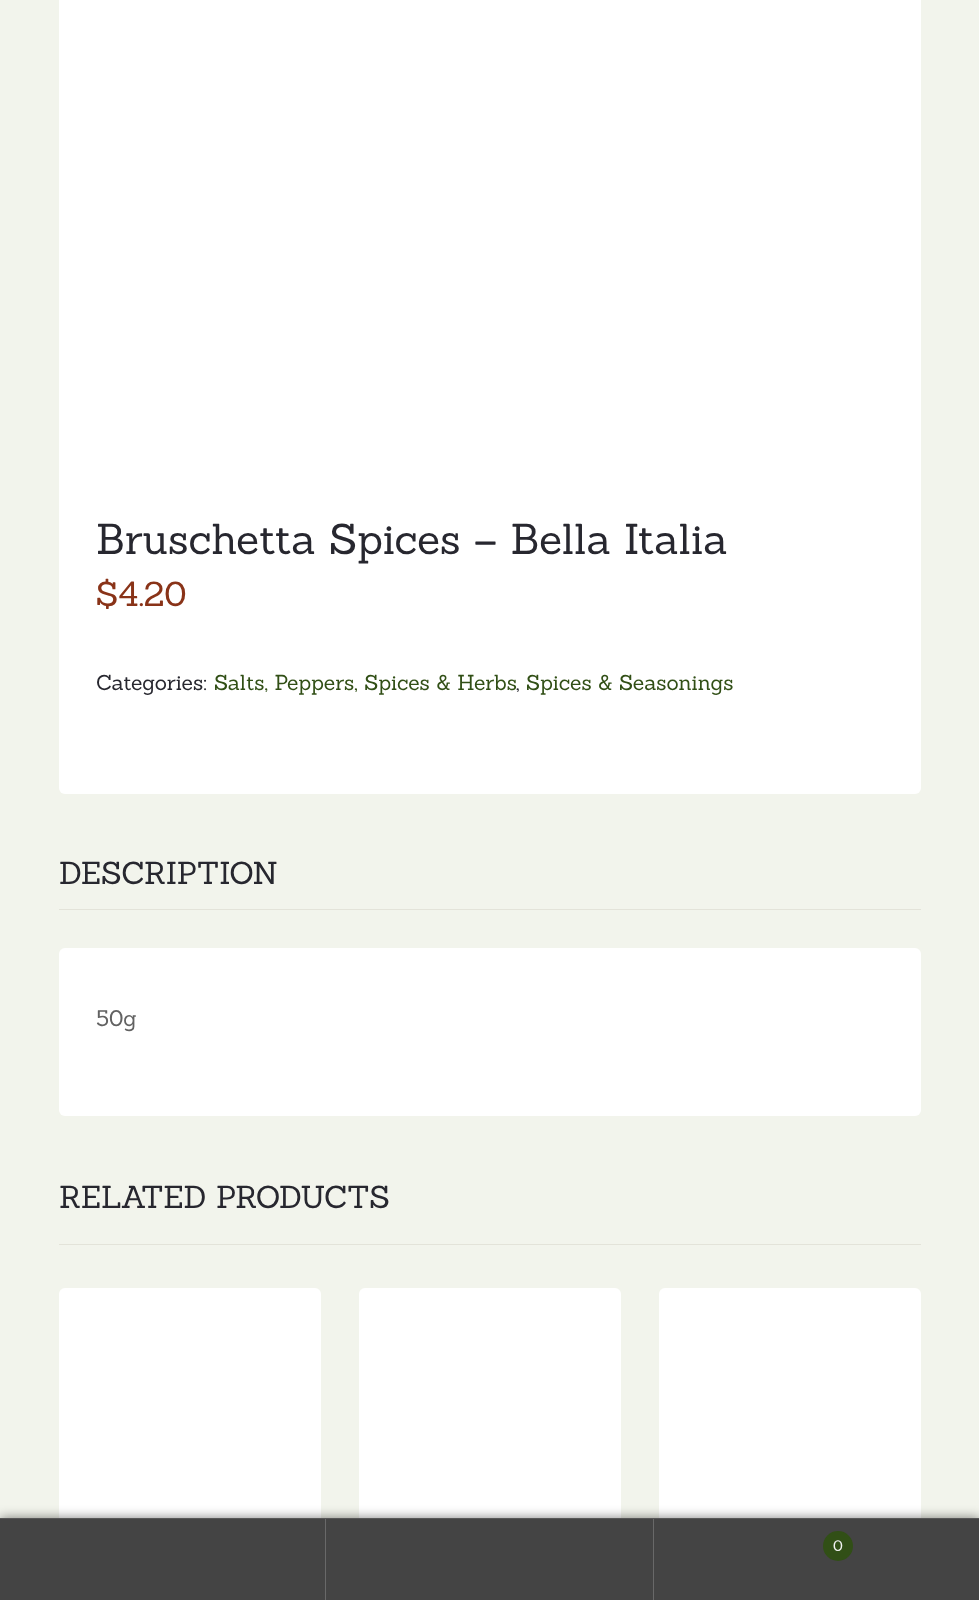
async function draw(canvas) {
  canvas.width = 979;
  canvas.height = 1600;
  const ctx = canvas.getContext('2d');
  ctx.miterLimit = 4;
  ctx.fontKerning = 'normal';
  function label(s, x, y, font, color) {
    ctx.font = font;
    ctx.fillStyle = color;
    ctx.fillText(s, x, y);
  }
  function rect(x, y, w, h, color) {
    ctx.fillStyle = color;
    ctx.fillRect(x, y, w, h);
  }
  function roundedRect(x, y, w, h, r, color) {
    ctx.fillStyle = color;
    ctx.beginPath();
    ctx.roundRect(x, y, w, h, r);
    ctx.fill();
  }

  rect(0, 0, 979, 1600, '#f2f4ec');
  roundedRect(59, -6, 862, 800, 6, '#fff');
  label('Bruschetta Spices – Bella Italia', 96, 554, '42.25px Sanchez', '#27272f');
  label('$4.20', 96, 606, '34px Sanchez', '#893318');
  label('Categories:', 96, 690, '21.1px Sanchez', '#27272f');
  label('Salts, Peppers, Spices & Herbs', 214, 690, '21.1px Sanchez', '#314f16');
  label(',', 516, 690, '21.1px Sanchez', '#27272f');
  label('Spices & Seasonings', 526, 690, '21.1px Sanchez', '#314f16');
  rect(59, 909, 862, 1, '#e3e3d9');
  label('DESCRIPTION', 59, 884, '31px Sanchez', '#27272f');
  roundedRect(59, 948, 862, 168, 6, '#fff');
  label('50g', 96, 1026, '22px Sanchez', '#626262');
  rect(59, 1244, 862, 1, '#e3e3d9');
  label('RELATED PRODUCTS', 59, 1208, '31px Sanchez', '#27272f');
  roundedRect(59, 1288, 262, 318, 6, '#fff');
  roundedRect(359, 1288, 262, 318, 6, '#fff');
  roundedRect(659, 1288, 262, 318, 6, '#fff');
  ctx.fillStyle = '#00000080';
  ctx.filter = 'blur(6px)';
  ctx.beginPath();
  ctx.rect(0, 1518, 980, 82);
  ctx.fill();
  ctx.filter = 'none';
  rect(0, 1518, 979, 1, '#575757');
  rect(0, 1519, 325, 81, '#444');
  rect(325, 1519, 1, 81, '#696969');
  rect(326, 1519, 327, 81, '#444');
  rect(653, 1519, 1, 81, '#696969');
  rect(654, 1519, 325, 81, '#444');
  ctx.fillStyle = '#314f16';
  ctx.beginPath();
  ctx.arc(838, 1546, 15, 0, 2 * Math.PI);
  ctx.fill();
  label('0', 833, 1551, '15px Sanchez', '#f3f3f3');
}

draw(document.querySelector('canvas'));
